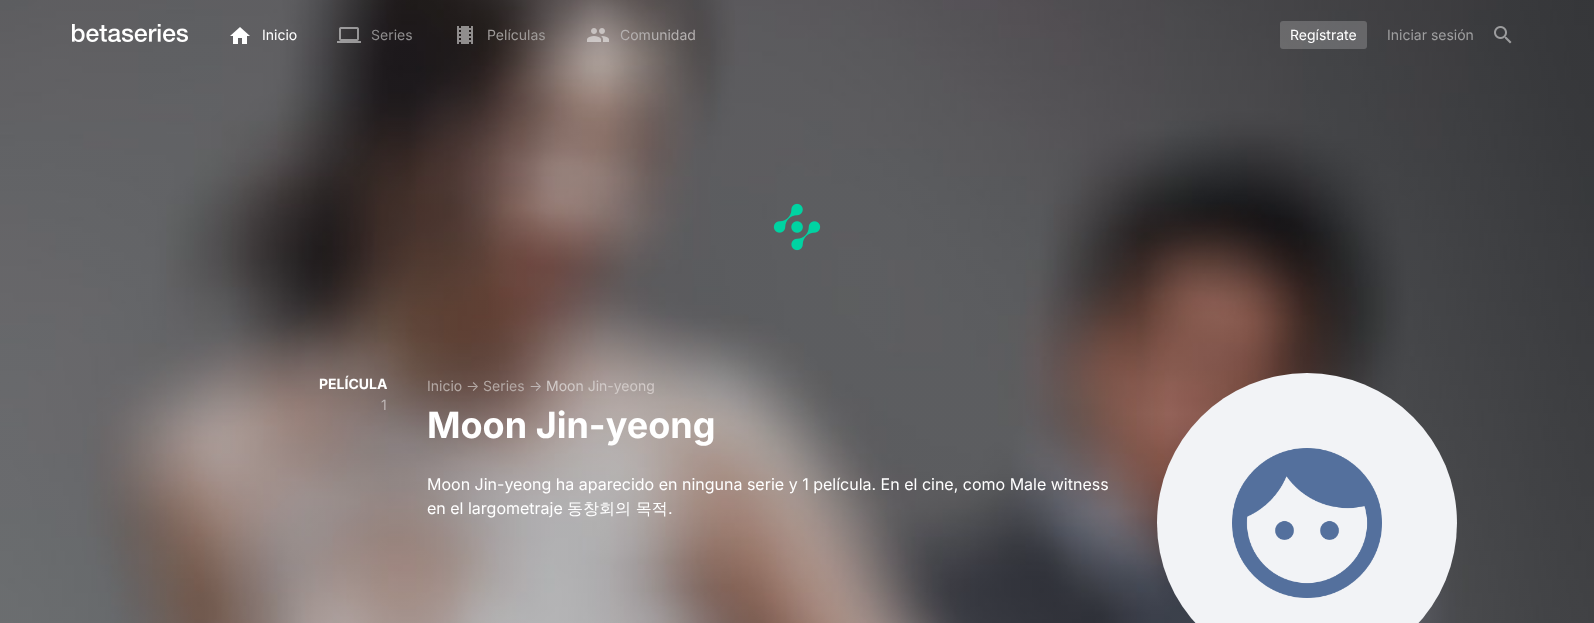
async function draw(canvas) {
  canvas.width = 1594;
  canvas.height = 623;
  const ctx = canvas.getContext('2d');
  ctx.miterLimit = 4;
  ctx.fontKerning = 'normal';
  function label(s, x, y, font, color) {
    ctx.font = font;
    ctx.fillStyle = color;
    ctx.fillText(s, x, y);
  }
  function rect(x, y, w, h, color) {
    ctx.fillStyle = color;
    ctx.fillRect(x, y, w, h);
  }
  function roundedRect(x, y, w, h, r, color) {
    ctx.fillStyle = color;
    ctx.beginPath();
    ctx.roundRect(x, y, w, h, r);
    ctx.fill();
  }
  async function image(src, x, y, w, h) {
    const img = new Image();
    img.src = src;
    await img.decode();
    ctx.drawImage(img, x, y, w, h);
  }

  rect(0, 0, 1594, 623, '#fff');
  await image('assets/img1.png', 0, 0, 1594, 623);
  await image('assets/img2.png', 72, 24, 116, 18);
  await image('assets/img3.png', 230, 27, 20, 17);
  label('Inicio', 262, 40, '14px Inter', '#fff');
  await image('assets/img4.png', 337, 27, 24, 16);
  label('Series', 371, 40, '14px Inter', '#8f8d8e');
  await image('assets/img5.png', 457, 26, 16, 18);
  label('Películas', 487, 40, '14px Inter', '#9f9b99');
  await image('assets/img6.png', 587, 28, 22, 14);
  label('Comunidad', 620, 40, '14px Inter', '#b4b0b0');
  roundedRect(1280, 21, 87, 28, 3, '#ffffff33');
  label('Regístrate', 1290, 40, '14px Inter', '#fff');
  label('Iniciar sesión', 1387, 40, '14px Inter', '#9f9fa0');
  await image('assets/img7.png', 1494, 26, 18, 18);
  await image('assets/img8.png', 773, 203, 48, 48);
  label('PELÍCULA', 319, 389, 'bold 14px Inter', '#fff');
  label('1', 381, 410, '14px Inter', '#beb6b5');
  label('Inicio', 427, 391, '14px Inter', '#b4a9a5');
  label('→', 466, 391, '14px Inter', '#b4a9a5');
  label('Series', 483, 391, '14px Inter', '#b4a9a5');
  label('→', 529, 391, '14px Inter', '#beb6b5');
  label('Moon Jin-yeong', 546, 391, '14px Inter', '#d1cac8');
  label('Moon Jin-yeong', 427, 438, 'bold 36px Inter', '#fff');
  label('Moon Jin-yeong ha aparecido en ninguna serie y 1 película. En el cine, como Male witness', 427, 490, '16px Inter', '#fff');
  label('en el largometraje', 427, 514, '16px Inter', '#fff');
  label('동창회의 목적', 567, 514, '500 16px WenQuanYi Zen Hei', '#fff');
  label('.', 668, 514, '16px Inter', '#fff');
  await image('assets/img9.png', 1157, 373, 300, 250);
}

draw(document.querySelector('canvas'));
